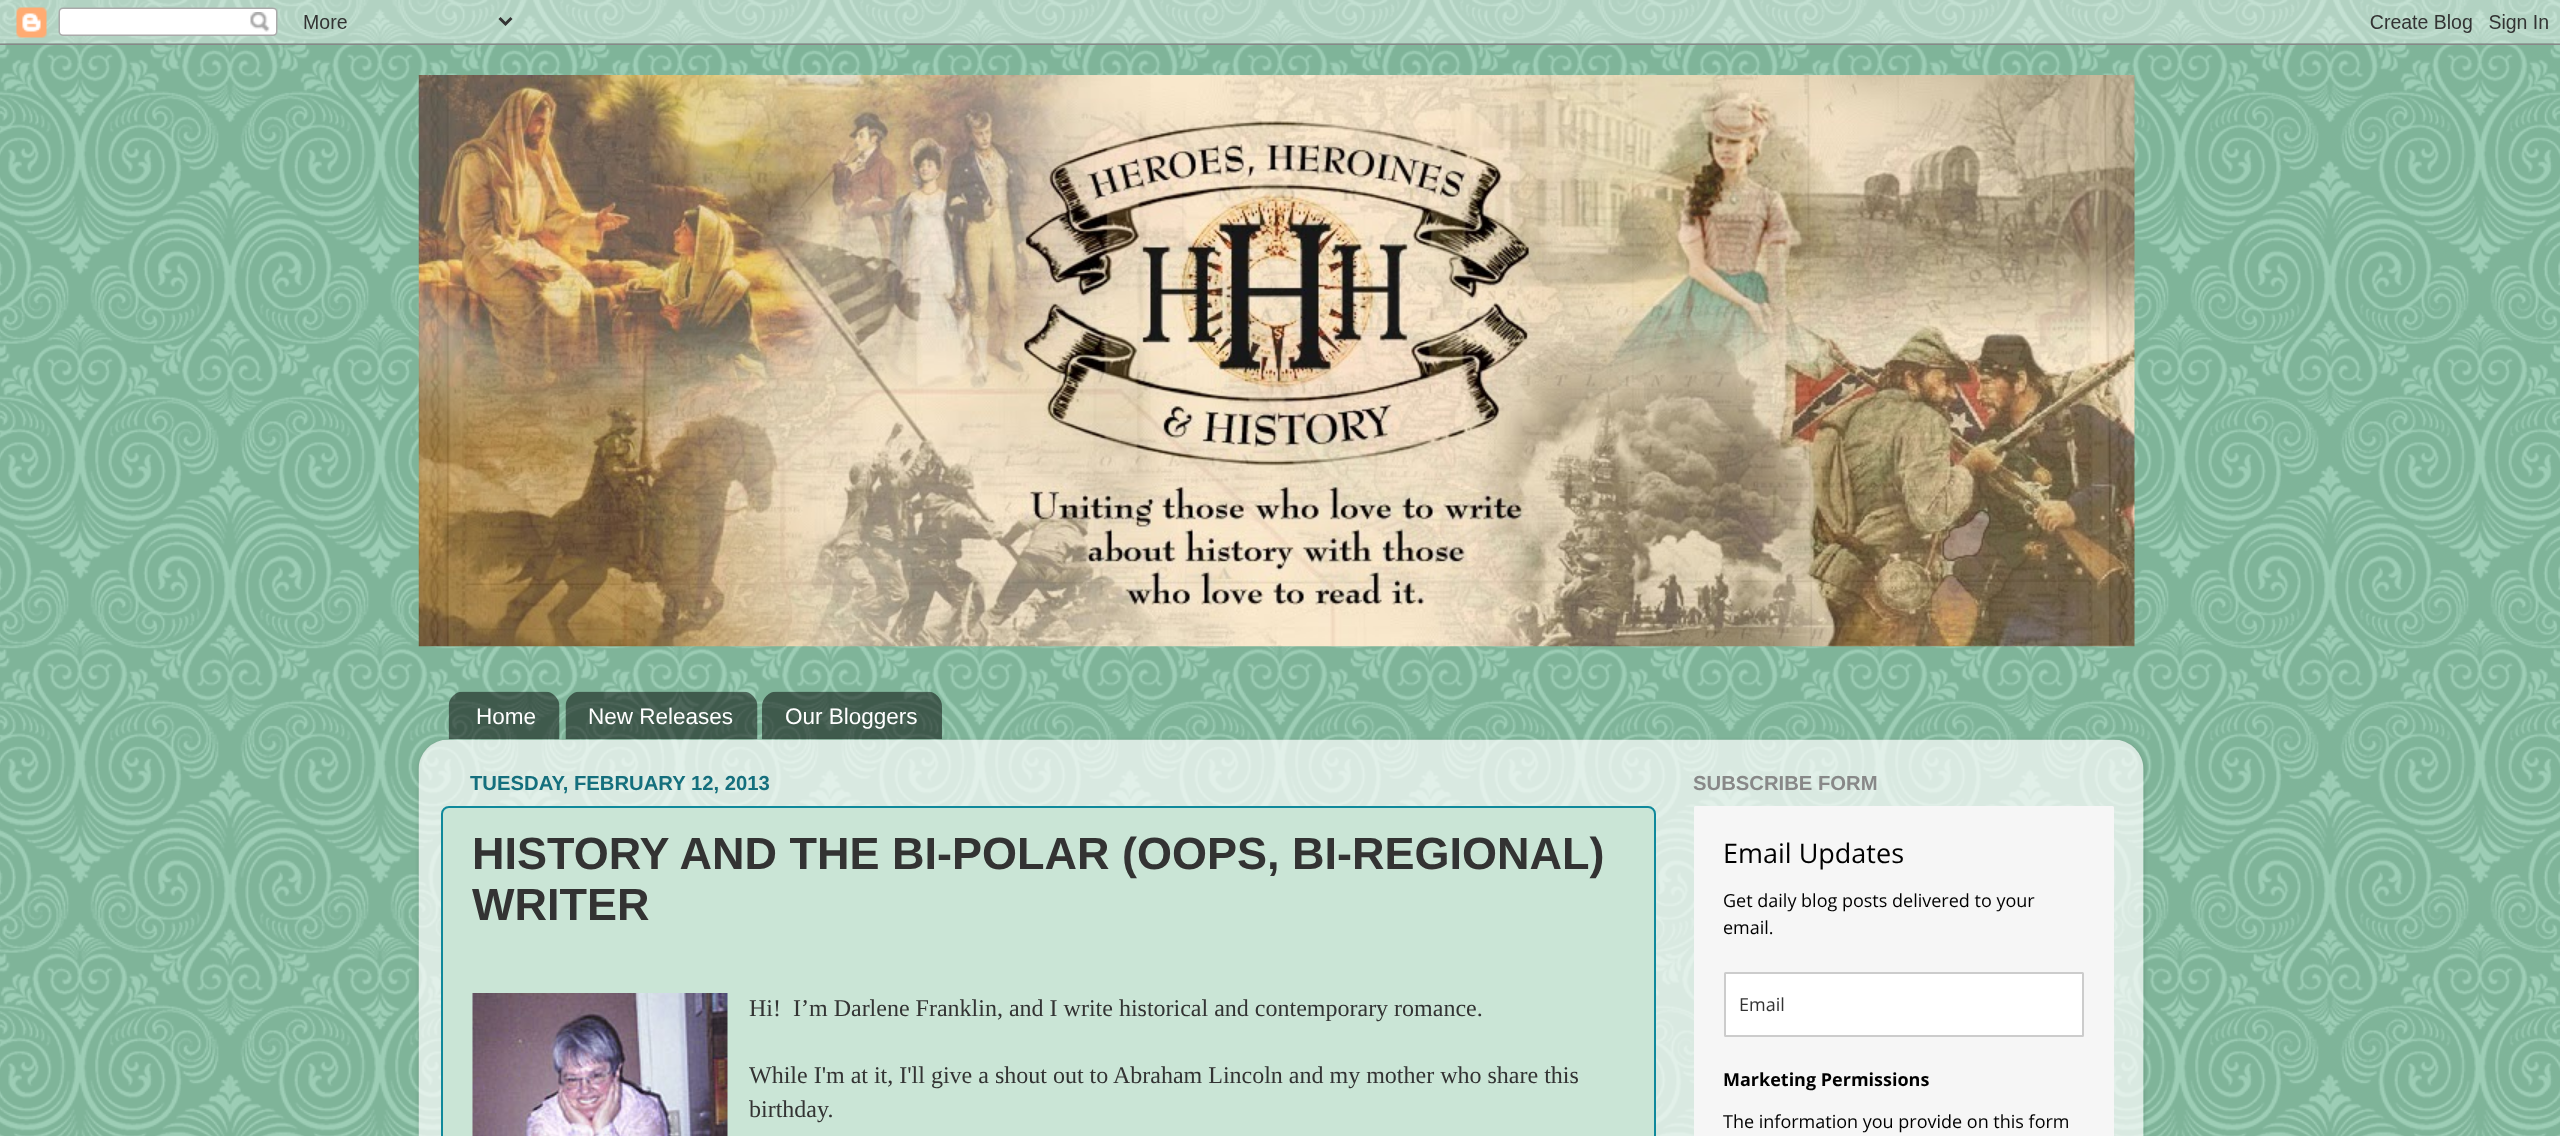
async function draw(canvas) {
  canvas.width = 2560;
  canvas.height = 1136;
  const ctx = canvas.getContext('2d');
  ctx.miterLimit = 4;
  ctx.fontKerning = 'normal';
  function label(s, x, y, font, color) {
    ctx.font = font;
    ctx.fillStyle = color;
    ctx.fillText(s, x, y);
  }
  function rect(x, y, w, h, color) {
    ctx.fillStyle = color;
    ctx.fillRect(x, y, w, h);
  }
  function roundedRect(x, y, w, h, r, color) {
    ctx.fillStyle = color;
    ctx.beginPath();
    ctx.roundRect(x, y, w, h, r);
    ctx.fill();
  }
  async function image(src, x, y, w, h) {
    const img = new Image();
    img.src = src;
    await img.decode();
    ctx.drawImage(img, x, y, w, h);
  }
  let path;

  rect(0, 0, 2560, 1136, '#9fe1c0');
  await image('assets/img1.png', 0, 0, 2560, 1136);
  await image('assets/img2.png', 0, 0, 2560, 45);
  await image('assets/img3.png', 418, 75, 1717, 572);
  await image('assets/img4.png', 448, 691, 112, 49);
  label('Home', 476, 724, '22.5px Liberation Sans', '#fff');
  await image('assets/img5.png', 565, 691, 193, 49);
  label('New Releases', 588, 724, '22.5px Liberation Sans', '#fff');
  await image('assets/img6.png', 762, 691, 180, 49);
  label('Our Bloggers', 785, 724, '22.5px Liberation Sans', '#fff');
  ctx.save();
  path = new Path2D('M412 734H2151V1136H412ZM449 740H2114C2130.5 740 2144 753.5 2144 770V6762H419V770C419 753.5 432.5 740 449 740Z');
  ctx.clip(path, 'evenodd');
  ctx.fillStyle = '#00000026';
  ctx.filter = 'blur(2px)';
  ctx.beginPath();
  ctx.roundRect(419, 741, 1725, 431, 30);
  ctx.fill();
  ctx.filter = 'none';
  ctx.restore();
  await image('assets/img7.png', 418, 739, 1726, 397);
  label('TUESDAY, FEBRUARY 12, 2013', 470, 790, 'bold 20.25px Liberation Sans', '#146f7d');
  ctx.fillStyle = '#cae5d6';
  ctx.beginPath();
  ctx.roundRect(442, 807, 1213, 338, 7);
  ctx.fill();
  ctx.strokeStyle = '#0f899b';
  ctx.lineWidth = 2;
  ctx.stroke();
  label('HISTORY AND THE BI-POLAR (OOPS, BI-REGIONAL)', 472, 869, 'bold 45px Liberation Sans', '#333');
  label('WRITER', 472, 920, 'bold 45px Liberation Sans', '#333');
  await image('assets/img8.png', 472, 993, 256, 143);
  label('Hi!  I’m Darlene Franklin, and I write historical and contemporary romance.', 749, 1016, '24px Liberation Serif', '#333');
  label('While I\'m at it, I\'ll give a shout out to Abraham Lincoln and my mother who share this', 749, 1083, '24px Liberation Serif', '#333');
  label('birthday.', 749, 1117, '24px Liberation Serif', '#333');
  label('SUBSCRIBE FORM', 1693, 790, 'bold 20.25px Liberation Sans', '#888');
  roundedRect(1694, 806, 420, 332, 1.5, '#f6f6f6');
  label('Email Updates', 1723, 863, '27px Open Sans', '#000');
  label('Get daily blog posts delivered to your', 1723, 907, '18px Open Sans', '#000');
  label('email.', 1723, 934, '18px Open Sans', '#000');
  ctx.fillStyle = '#fff';
  ctx.beginPath();
  ctx.roundRect(1725, 973, 358, 63, 0.5);
  ctx.fill();
  ctx.strokeStyle = '#ccc';
  ctx.stroke();
  label('Email', 1739, 1011, '18px Open Sans', '#333');
  label('Marketing Permissions', 1723, 1086, 'bold 18px Open Sans', '#000');
  label('The information you provide on this form', 1723, 1128, '18px Open Sans', '#000');
}

draw(document.querySelector('canvas'));
